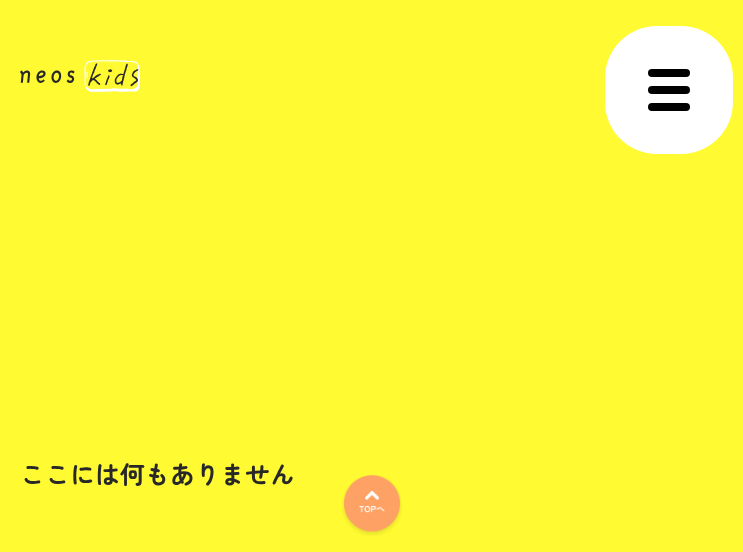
async function draw(canvas) {
  canvas.width = 743;
  canvas.height = 552;
  const ctx = canvas.getContext('2d');
  ctx.miterLimit = 4;
  ctx.fontKerning = 'normal';
  function label(s, x, y, font, color) {
    ctx.font = font;
    ctx.fillStyle = color;
    ctx.fillText(s, x, y);
  }
  function rect(x, y, w, h, color) {
    ctx.fillStyle = color;
    ctx.fillRect(x, y, w, h);
  }
  function roundedRect(x, y, w, h, r, color) {
    ctx.fillStyle = color;
    ctx.beginPath();
    ctx.roundRect(x, y, w, h, r);
    ctx.fill();
  }
  async function image(src, x, y, w, h) {
    const img = new Image();
    img.src = src;
    await img.decode();
    ctx.drawImage(img, x, y, w, h);
  }

  rect(0, 0, 743, 552, '#fffa32');
  roundedRect(605, 26, 128, 128, 52, '#fff');
  roundedRect(648, 69, 42, 8, 4, '#000');
  roundedRect(648, 86, 42, 8, 4, '#000');
  roundedRect(648, 103, 42, 8, 4, '#000');
  await image('assets/img1.png', 20, 60, 120, 32);
  label('ここには何もありません', 20, 484, 'bold 25px Zen Maru Gothic', '#282828');
  await image('assets/img2.png', 342, 475, 60, 61);
}

draw(document.querySelector('canvas'));
